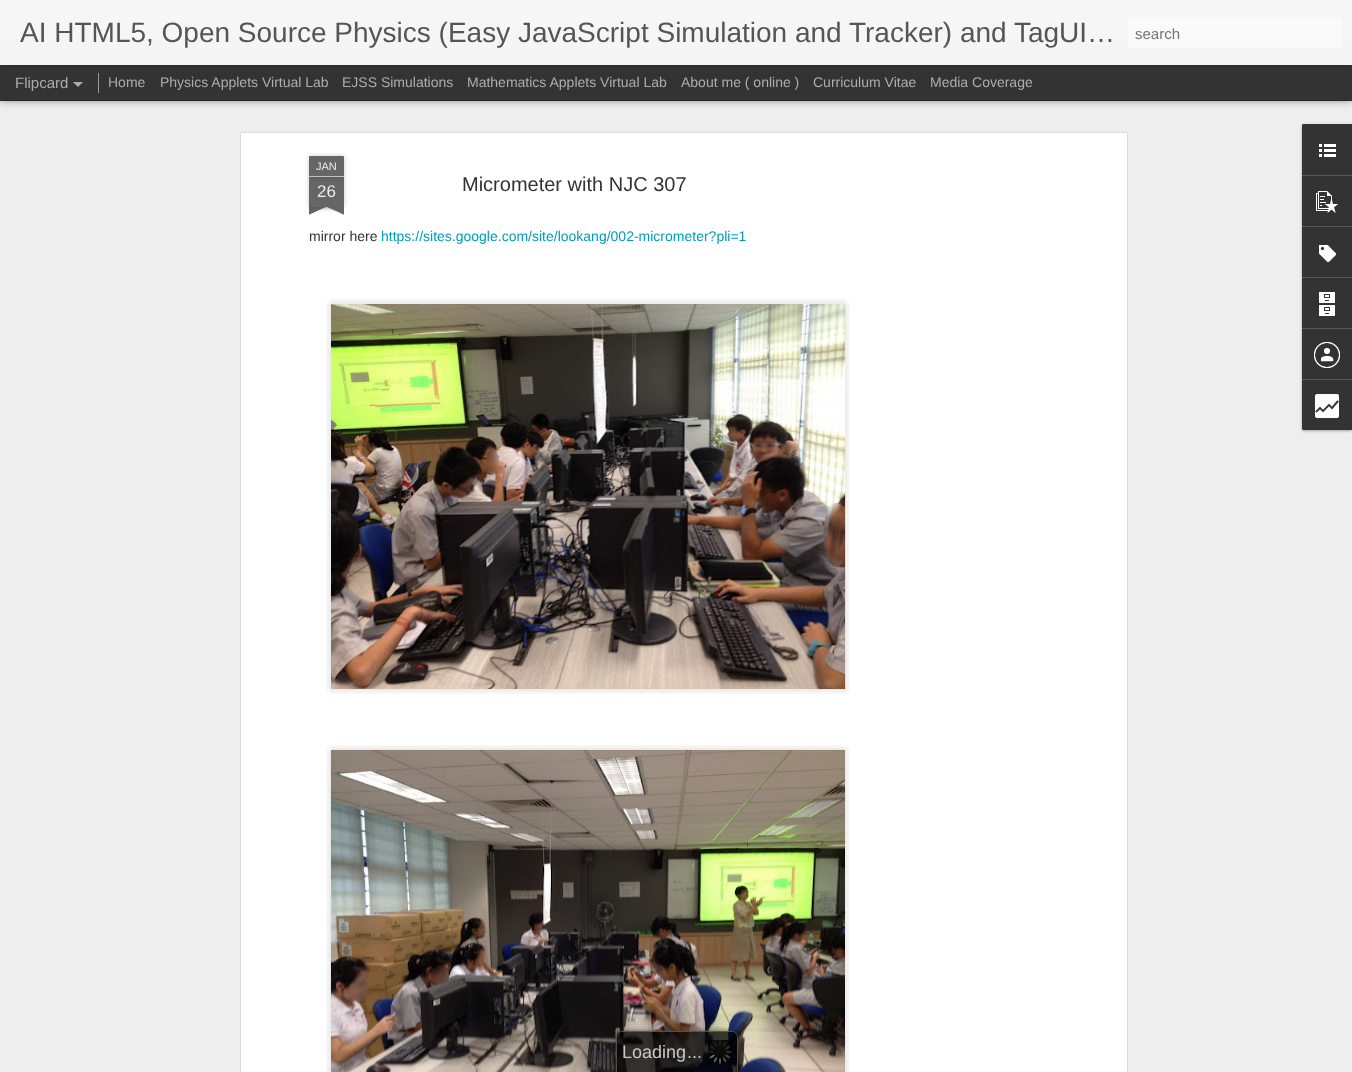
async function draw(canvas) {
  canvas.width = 1352;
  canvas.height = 1072;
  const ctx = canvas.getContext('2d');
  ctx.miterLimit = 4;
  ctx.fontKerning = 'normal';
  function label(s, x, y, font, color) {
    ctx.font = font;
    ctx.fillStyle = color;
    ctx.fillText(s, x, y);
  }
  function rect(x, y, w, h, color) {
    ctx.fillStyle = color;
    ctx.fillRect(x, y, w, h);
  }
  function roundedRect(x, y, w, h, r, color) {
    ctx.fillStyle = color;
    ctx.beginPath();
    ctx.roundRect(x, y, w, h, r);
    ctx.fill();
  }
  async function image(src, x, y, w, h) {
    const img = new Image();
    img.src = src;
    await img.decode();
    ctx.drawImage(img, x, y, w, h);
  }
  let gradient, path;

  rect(0, 0, 1352, 1072, '#333');
  rect(0, 101, 1352, 971, '#eee');
  ctx.fillStyle = '#00000080';
  ctx.filter = 'blur(4px)';
  ctx.beginPath();
  ctx.rect(0, 65, 1352, 35);
  ctx.fill();
  ctx.filter = 'none';
  rect(0, 65, 1352, 35, '#333');
  rect(98, 73, 1, 20, '#999');
  ctx.fillStyle = '#0000004d';
  ctx.filter = 'blur(2.5px)';
  ctx.beginPath();
  ctx.rect(0, 0, 1352, 65);
  ctx.fill();
  ctx.filter = 'none';
  gradient = ctx.createLinearGradient(0, 0, 0, 65);
  gradient.addColorStop(0, '#f7f7f7');
  gradient.addColorStop(1, '#f4f4f4');
  ctx.fillStyle = gradient;
  ctx.fillRect(0, 0, 1352, 65);
  label('AI HTML5, Open Source Physics (Easy JavaScript Simulation and Tracker) and TagUI…', 20, 42, '28px Liberation Sans', '#555');
  roundedRect(1128, 18, 214, 30, 3, '#fafafa');
  label('search', 1135, 39, '15px Liberation Sans', '#757575');
  label('Flipcard', 15, 88, '15px Liberation Sans', '#adadad');
  path = new Path2D('M73 82H83L78 87Z');
  ctx.fill(path);
  label('Home', 108, 87, '14px Liberation Sans', '#adadad');
  label('Physics Applets Virtual Lab', 160, 87, '14px Liberation Sans', '#adadad');
  label('EJSS Simulations', 342, 87, '14px Liberation Sans', '#adadad');
  label('Mathematics Applets Virtual Lab', 467, 87, '14px Liberation Sans', '#adadad');
  label('About me ( online )', 681, 87, '14px Liberation Sans', '#adadad');
  label('Curriculum Vitae', 813, 87, '14px Liberation Sans', '#adadad');
  label('Media Coverage', 930, 87, '14px Liberation Sans', '#adadad');
  rect(239, 131, 890, 941, '#fff');
  await image('assets/img1.png', 239, 131, 890, 941);
  ctx.fillStyle = '#00000033';
  ctx.filter = 'blur(2.5px)';
  ctx.beginPath();
  ctx.rect(309, 177, 35, 30);
  ctx.fill();
  ctx.filter = 'none';
  rect(309, 177, 35, 30, '#666');
  ctx.fillStyle = '#00000033';
  ctx.filter = 'blur(2.5px)';
  ctx.beginPath();
  ctx.roundRect(309, 156, 35, 21, 1);
  ctx.fill();
  ctx.filter = 'none';
  ctx.fillStyle = '#666';
  ctx.beginPath();
  ctx.roundRect(309, 156, 35, 21, [1, 1, 0, 0]);
  ctx.fill();
  rect(309, 176, 35, 1, '#c2c2c2');
  label('JAN', 316, 170, '11px Liberation Sans', '#eee');
  label('26', 317, 197, '17px Liberation Sans', '#eee');
  ctx.save();
  ctx.beginPath();
  ctx.rect(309, 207, 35, 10);
  ctx.clip();
  ctx.fillStyle = '#00000033';
  ctx.filter = 'blur(2.5px)';
  ctx.beginPath();
  ctx.rect(300, 197, 50, 10);
  ctx.fill();
  ctx.filter = 'none';
  ctx.restore();
  ctx.save();
  ctx.beginPath();
  ctx.rect(309, 207, 35, 10);
  ctx.clip();
  ctx.fillStyle = '#666';
  path = new Path2D('M300 208L346 187L350 196L304 217Z');
  ctx.fill(path);
  ctx.restore();
  ctx.save();
  ctx.beginPath();
  ctx.rect(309, 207, 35, 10);
  ctx.clip();
  ctx.fillStyle = '#00000033';
  ctx.filter = 'blur(2.5px)';
  ctx.beginPath();
  ctx.rect(303, 197, 50, 10);
  ctx.fill();
  ctx.filter = 'none';
  ctx.restore();
  ctx.save();
  ctx.beginPath();
  ctx.rect(309, 207, 35, 10);
  ctx.clip();
  ctx.fillStyle = '#666';
  path = new Path2D('M307 187L353 208L349 217L303 196Z');
  ctx.fill(path);
  ctx.restore();
  label('Micrometer with NJC 307', 462, 191, '20px Liberation Sans', '#333');
  label('mirror here', 309, 241, '14px Liberation Sans', '#333');
  label('https://sites.google.com/site/lookang/002-micrometer?pli=1', 381, 241, '14px Liberation Sans', '#009eb8');
  await image('assets/img2.png', 326, 299, 524, 395);
  await image('assets/img3.png', 331, 304, 515, 385);
  await image('assets/img4.png', 326, 745, 524, 327);
  await image('assets/img5.png', 330, 749, 515, 323);
  ctx.fillStyle = '#0000004d';
  ctx.filter = 'blur(1.5px)';
  ctx.beginPath();
  ctx.roundRect(1302, 125, 50, 306, 2);
  ctx.fill();
  ctx.filter = 'none';
  ctx.fillStyle = '#333';
  ctx.beginPath();
  ctx.roundRect(1302, 124, 50, 306, [2, 0, 0, 2]);
  ctx.fill();
  ctx.beginPath();
  ctx.roundRect(1302, 124, 50, 51, [2, 0, 0, 0]);
  ctx.fill();
  await image('assets/img6.png', 1319, 144, 17, 13);
  rect(1302, 175, 50, 1, '#585858');
  await image('assets/img7.png', 1316, 191, 22, 22);
  rect(1302, 226, 50, 1, '#585858');
  await image('assets/img8.png', 1319, 245, 17, 17);
  rect(1302, 277, 50, 1, '#585858');
  await image('assets/img9.png', 1319, 292, 16, 24);
  rect(1302, 328, 50, 1, '#585858');
  await image('assets/img10.png', 1314, 342, 26, 26);
  ctx.fillStyle = '#333';
  ctx.beginPath();
  ctx.roundRect(1302, 379, 50, 51, [0, 0, 0, 2]);
  ctx.fill();
  rect(1302, 379, 50, 1, '#585858');
  await image('assets/img11.png', 1315, 394, 24, 24);
  ctx.save();
  path = new Path2D('M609 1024H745V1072H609ZM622 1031H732C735.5 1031 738 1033.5 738 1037V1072H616V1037C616 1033.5 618.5 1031 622 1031Z');
  ctx.clip(path, 'evenodd');
  ctx.fillStyle = '#333333bf';
  ctx.filter = 'blur(2px)';
  ctx.beginPath();
  ctx.roundRect(616, 1031, 122, 41, 6);
  ctx.fill();
  ctx.filter = 'none';
  ctx.restore();
  ctx.fillStyle = '#000000bf';
  ctx.beginPath();
  ctx.roundRect(616, 1031, 122, 41, [6, 6, 0, 0]);
  ctx.fill();
  ctx.fillStyle = '#666666bf';
  path = new Path2D('M622 1031H732C735 1031 738 1034 738 1037V1072H616V1037C616 1034 619 1031 622 1031ZM622 1032H732C735 1032 737 1034 737 1037V1072H617V1037C617 1034 619 1032 622 1032Z');
  ctx.fill(path, 'evenodd');
  await image('assets/img12.png', 708, 1040, 24, 24);
  label('Loading', 622, 1058, '18px Liberation Sans', '#c9c8c7');
  label('...', 687, 1058, '18px Liberation Sans', '#c9c8c7');
}

draw(document.querySelector('canvas'));
